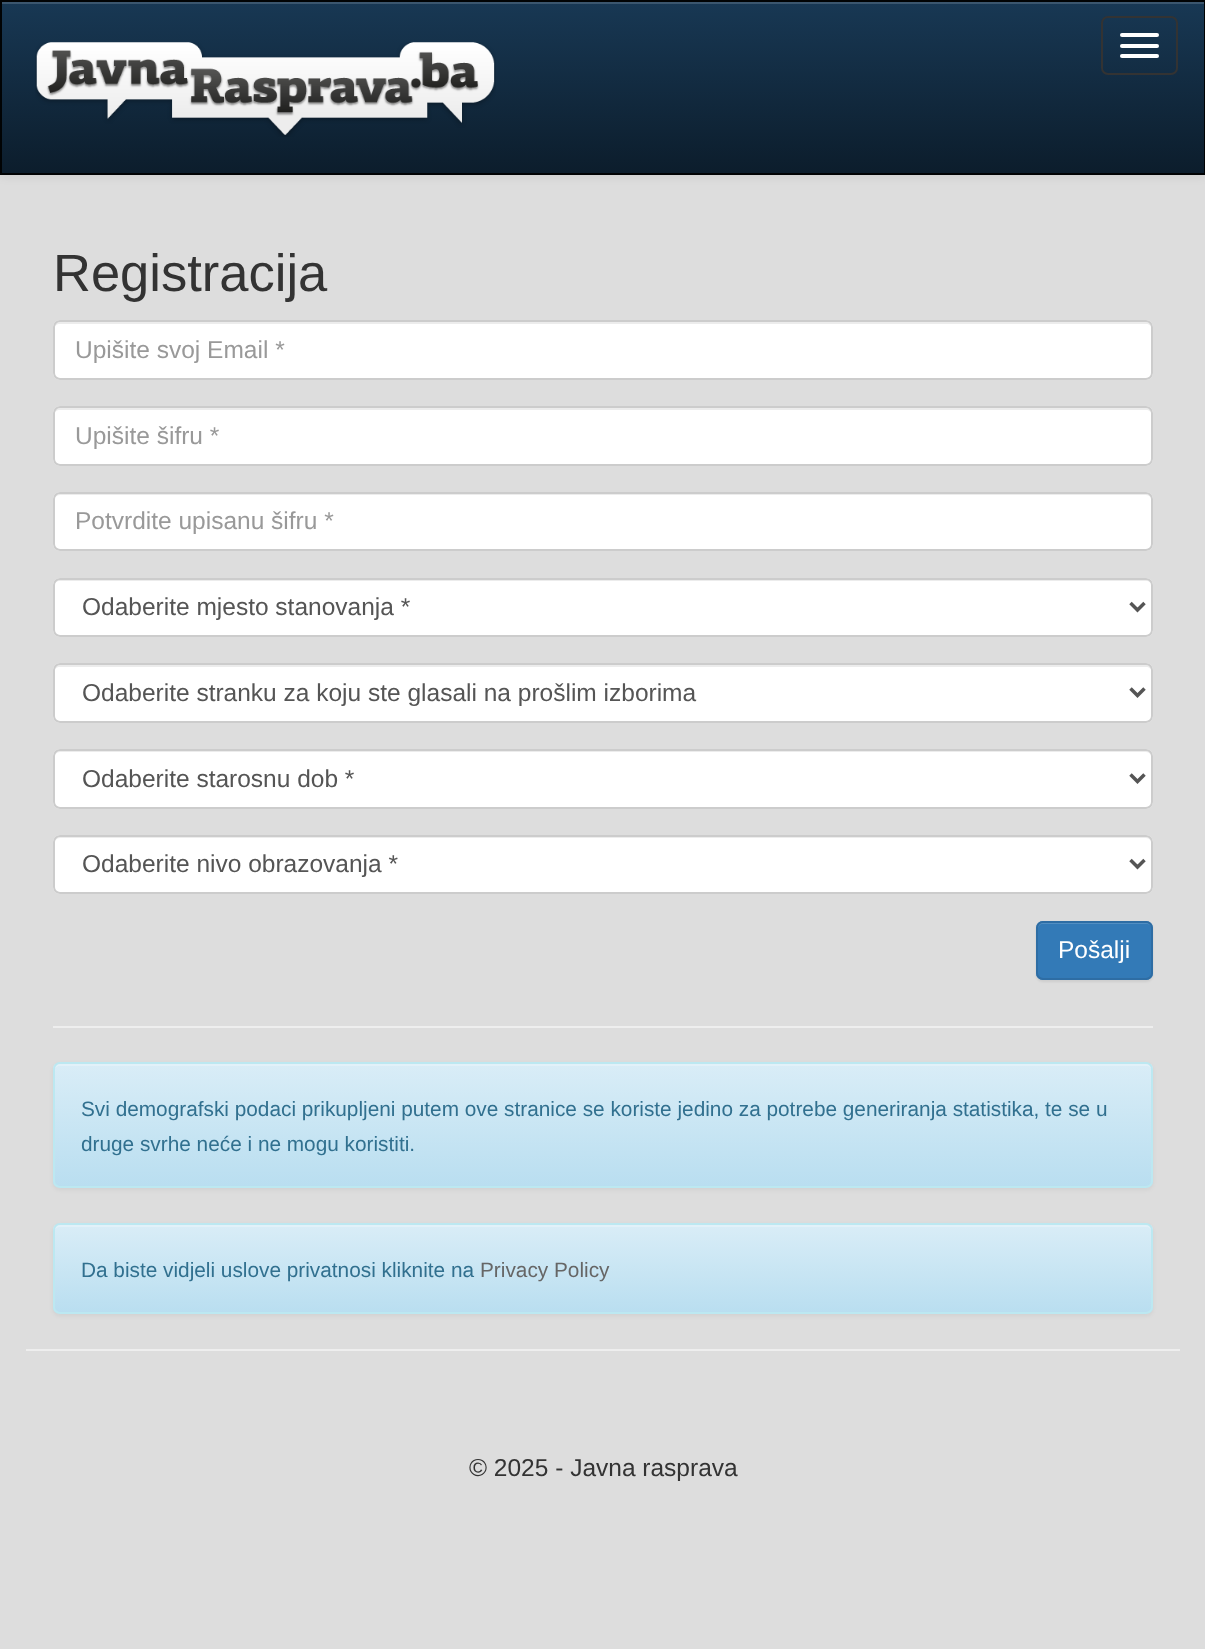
async function draw(canvas) {
  canvas.width = 1205;
  canvas.height = 1649;
  const ctx = canvas.getContext('2d');
  ctx.miterLimit = 4;
  ctx.fontKerning = 'normal';
  function label(s, x, y, font, color) {
    ctx.font = font;
    ctx.fillStyle = color;
    ctx.fillText(s, x, y);
  }
  function rect(x, y, w, h, color) {
    ctx.fillStyle = color;
    ctx.fillRect(x, y, w, h);
  }
  function roundedRect(x, y, w, h, r, color) {
    ctx.fillStyle = color;
    ctx.beginPath();
    ctx.roundRect(x, y, w, h, r);
    ctx.fill();
  }
  async function image(src, x, y, w, h) {
    const img = new Image();
    img.src = src;
    await img.decode();
    ctx.drawImage(img, x, y, w, h);
  }
  let gradient, path;

  rect(0, 0, 1205, 1649, '#ddd');
  ctx.fillStyle = '#00000012';
  ctx.filter = 'blur(4.5px)';
  ctx.beginPath();
  ctx.rect(0, 2, 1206, 175);
  ctx.fill();
  ctx.filter = 'none';
  gradient = ctx.createLinearGradient(603, 1.7, 603, 173);
  gradient.addColorStop(0, '#183854');
  gradient.addColorStop(1, '#0c1d2c');
  ctx.fillStyle = gradient;
  ctx.fillRect(2, 4, 1202, 169);
  rect(2, 2, 1202, 2, '#3b566e');
  ctx.strokeStyle = '#010304';
  ctx.lineWidth = 2;
  ctx.strokeRect(1, 1, 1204, 173);
  await image('assets/img1.png', 35, 42, 461, 95);
  ctx.beginPath();
  ctx.roundRect(1102, 17, 75, 57, 6);
  ctx.strokeStyle = '#333';
  ctx.stroke();
  roundedRect(1120, 33, 39, 4, 2, '#fff');
  roundedRect(1120, 44, 39, 4, 2, '#fff');
  roundedRect(1120, 54, 39, 4, 2, '#fff');
  label('Registracija', 53, 291, '52.5px Liberation Sans', '#333');
  roundedRect(53, 320, 1100, 60, 7, '#fff');
  ctx.fillStyle = '#ececec';
  path = new Path2D('M60 324H1146C1149 324 1152 326 1152 329V327C1152 324 1150 322 1147 322H59C56 322 54 324 54 327V329C54 326 57 324 60 324Z');
  ctx.fill(path);
  ctx.beginPath();
  ctx.roundRect(54, 321, 1098, 58, 6);
  ctx.strokeStyle = '#ccc';
  ctx.stroke();
  label('Upišite svoj Email *', 75, 358, '24.5px Liberation Sans', '#999');
  roundedRect(53, 406, 1100, 60, 7, '#fff');
  ctx.fillStyle = '#ececec';
  path = new Path2D('M60 410H1146C1149 410 1152 412 1152 415V413C1152 410 1150 408 1147 408H59C56 408 54 410 54 413V415C54 412 57 410 60 410Z');
  ctx.fill(path);
  ctx.beginPath();
  ctx.roundRect(54, 407, 1098, 58, 6);
  ctx.stroke();
  label('Upišite šifru *', 75, 444, '24.5px Liberation Sans', '#999');
  roundedRect(53, 492, 1100, 59, 7, '#fff');
  ctx.fillStyle = '#ececec';
  path = new Path2D('M60 495H1146C1149 495 1152 498 1152 500C1152 497 1150 494 1147 494H59C56 494 54 497 54 500C54 498 57 495 60 495Z');
  ctx.fill(path);
  ctx.beginPath();
  ctx.roundRect(54, 493, 1098, 57, 6);
  ctx.stroke();
  label('Potvrdite upisanu šifru *', 75, 529, '24.5px Liberation Sans', '#999');
  roundedRect(53, 578, 1100, 59, 7, '#fff');
  ctx.fillStyle = '#ececec';
  path = new Path2D('M60 581H1146C1149 581 1152 583 1152 586V584C1152 581 1150 579 1147 579H59C56 579 54 581 54 584V586C54 583 57 581 60 581Z');
  ctx.fill(path);
  ctx.beginPath();
  ctx.roundRect(54, 579, 1098, 57, 6);
  ctx.stroke();
  path = new Path2D('M1130.5 603L1137.5 610L1144.5 603');
  ctx.strokeStyle = '#555';
  ctx.lineWidth = 3.5;
  ctx.stroke(path);
  label('Odaberite mjesto stanovanja *', 82, 615, '24.5px Liberation Sans', '#555');
  roundedRect(53, 663, 1100, 60, 7, '#fff');
  ctx.fillStyle = '#ececec';
  path = new Path2D('M60 667H1146C1149 667 1152 669 1152 672V670C1152 667 1150 665 1147 665H59C56 665 54 667 54 670V672C54 669 57 667 60 667Z');
  ctx.fill(path);
  ctx.beginPath();
  ctx.roundRect(54, 664, 1098, 58, 6);
  ctx.strokeStyle = '#ccc';
  ctx.lineWidth = 2;
  ctx.stroke();
  path = new Path2D('M1130.5 688.5L1137.5 695.5L1144.5 688.5');
  ctx.strokeStyle = '#555';
  ctx.lineWidth = 3.5;
  ctx.stroke(path);
  label('Odaberite stranku za koju ste glasali na prošlim izborima', 82, 701, '24.5px Liberation Sans', '#555');
  roundedRect(53, 749, 1100, 60, 7, '#fff');
  ctx.fillStyle = '#ececec';
  path = new Path2D('M60 752H1146C1149 752 1152 755 1152 758V756C1152 753 1150 751 1147 751H59C56 751 54 753 54 756V758C54 755 57 752 60 752Z');
  ctx.fill(path);
  ctx.beginPath();
  ctx.roundRect(54, 750, 1098, 58, 6);
  ctx.strokeStyle = '#ccc';
  ctx.lineWidth = 2;
  ctx.stroke();
  path = new Path2D('M1130.5 774.5L1137.5 781.5L1144.5 774.5');
  ctx.strokeStyle = '#555';
  ctx.lineWidth = 3.5;
  ctx.stroke(path);
  label('Odaberite starosnu dob *', 82, 787, '24.5px Liberation Sans', '#555');
  roundedRect(53, 835, 1100, 59, 7, '#fff');
  ctx.fillStyle = '#ececec';
  path = new Path2D('M60 838H1146C1149 838 1152 841 1152 844V842C1152 839 1150 837 1147 837H59C56 837 54 839 54 842V844C54 841 57 838 60 838Z');
  ctx.fill(path);
  ctx.beginPath();
  ctx.roundRect(54, 836, 1098, 57, 6);
  ctx.strokeStyle = '#ccc';
  ctx.lineWidth = 2;
  ctx.stroke();
  path = new Path2D('M1130.5 860L1137.5 867L1144.5 860');
  ctx.strokeStyle = '#555';
  ctx.lineWidth = 3.5;
  ctx.stroke(path);
  label('Odaberite nivo obrazovanja *', 82, 872, '24.5px Liberation Sans', '#555');
  ctx.fillStyle = '#00000012';
  ctx.filter = 'blur(1px)';
  ctx.beginPath();
  ctx.roundRect(1036, 922, 117, 60, 7);
  ctx.fill();
  ctx.filter = 'none';
  roundedRect(1036, 921, 117, 59, 7, '#337ab7');
  ctx.fillStyle = '#528ec2';
  path = new Path2D('M1043 924H1146C1149 924 1152 926 1152 929V927C1152 924 1150 922 1147 922H1043C1040 922 1038 924 1038 927V929C1038 926 1040 924 1043 924Z');
  ctx.fill(path);
  ctx.beginPath();
  ctx.roundRect(1037, 922, 115, 57, 6);
  ctx.strokeStyle = '#2e6da4';
  ctx.lineWidth = 2;
  ctx.stroke();
  label('Pošalji', 1058, 958, '24.5px Liberation Sans', '#fff');
  rect(53, 1026, 1100, 2, '#eee');
  ctx.fillStyle = '#0000000d';
  ctx.filter = 'blur(2px)';
  ctx.beginPath();
  ctx.roundRect(53, 1064, 1100, 126, 7);
  ctx.fill();
  ctx.filter = 'none';
  ctx.save();
  ctx.beginPath();
  ctx.roundRect(53, 1062, 1100, 126, 7);
  ctx.clip();
  gradient = ctx.createLinearGradient(603, 1064, 603, 1187);
  gradient.addColorStop(0, '#d9edf7');
  gradient.addColorStop(1, '#b9def0');
  ctx.fillStyle = gradient;
  ctx.fillRect(53, 1064, 1100, 123);
  ctx.restore();
  ctx.fillStyle = '#e2f1f9';
  path = new Path2D('M60 1066H1146C1149 1066 1152 1068 1152 1071V1069C1152 1066 1150 1064 1147 1064H59C56 1064 54 1066 54 1069V1071C54 1068 57 1066 60 1066Z');
  ctx.fill(path);
  ctx.beginPath();
  ctx.roundRect(54, 1063, 1098, 124, 6);
  ctx.strokeStyle = '#bce8f1';
  ctx.stroke();
  label('Svi demografski podaci prikupljeni putem ove stranice se koriste jedino za potrebe generiranja statistika, te se u', 81, 1116, '20.8px Liberation Sans', '#31708f');
  label('druge svrhe neće i ne mogu koristiti.', 81, 1151, '20.8px Liberation Sans', '#31708f');
  ctx.fillStyle = '#0000000d';
  ctx.filter = 'blur(2px)';
  ctx.beginPath();
  ctx.roundRect(53, 1225, 1100, 91, 7);
  ctx.fill();
  ctx.filter = 'none';
  ctx.save();
  ctx.beginPath();
  ctx.roundRect(53, 1223, 1100, 91, 7);
  ctx.clip();
  gradient = ctx.createLinearGradient(603, 1225, 603, 1313);
  gradient.addColorStop(0, '#d9edf7');
  gradient.addColorStop(1, '#b9def0');
  ctx.fillStyle = gradient;
  ctx.fillRect(53, 1225, 1100, 88);
  ctx.restore();
  ctx.fillStyle = '#e2f1f9';
  path = new Path2D('M60 1227H1146C1149 1227 1152 1229 1152 1232V1230C1152 1227 1150 1225 1147 1225H59C56 1225 54 1227 54 1230V1232C54 1229 57 1227 60 1227Z');
  ctx.fill(path);
  ctx.beginPath();
  ctx.roundRect(54, 1224, 1098, 89, 6);
  ctx.stroke();
  label('Da biste vidjeli uslove privatnosi kliknite na', 81, 1277, '20.8px Liberation Sans', '#31708f');
  label('Privacy Policy', 480, 1277, '20.8px Liberation Sans', '#666');
  rect(26, 1349, 1154, 2, '#eee');
  label('© 2025 - Javna rasprava', 469, 1476, '24.5px Liberation Sans', '#333');
}

draw(document.querySelector('canvas'));
